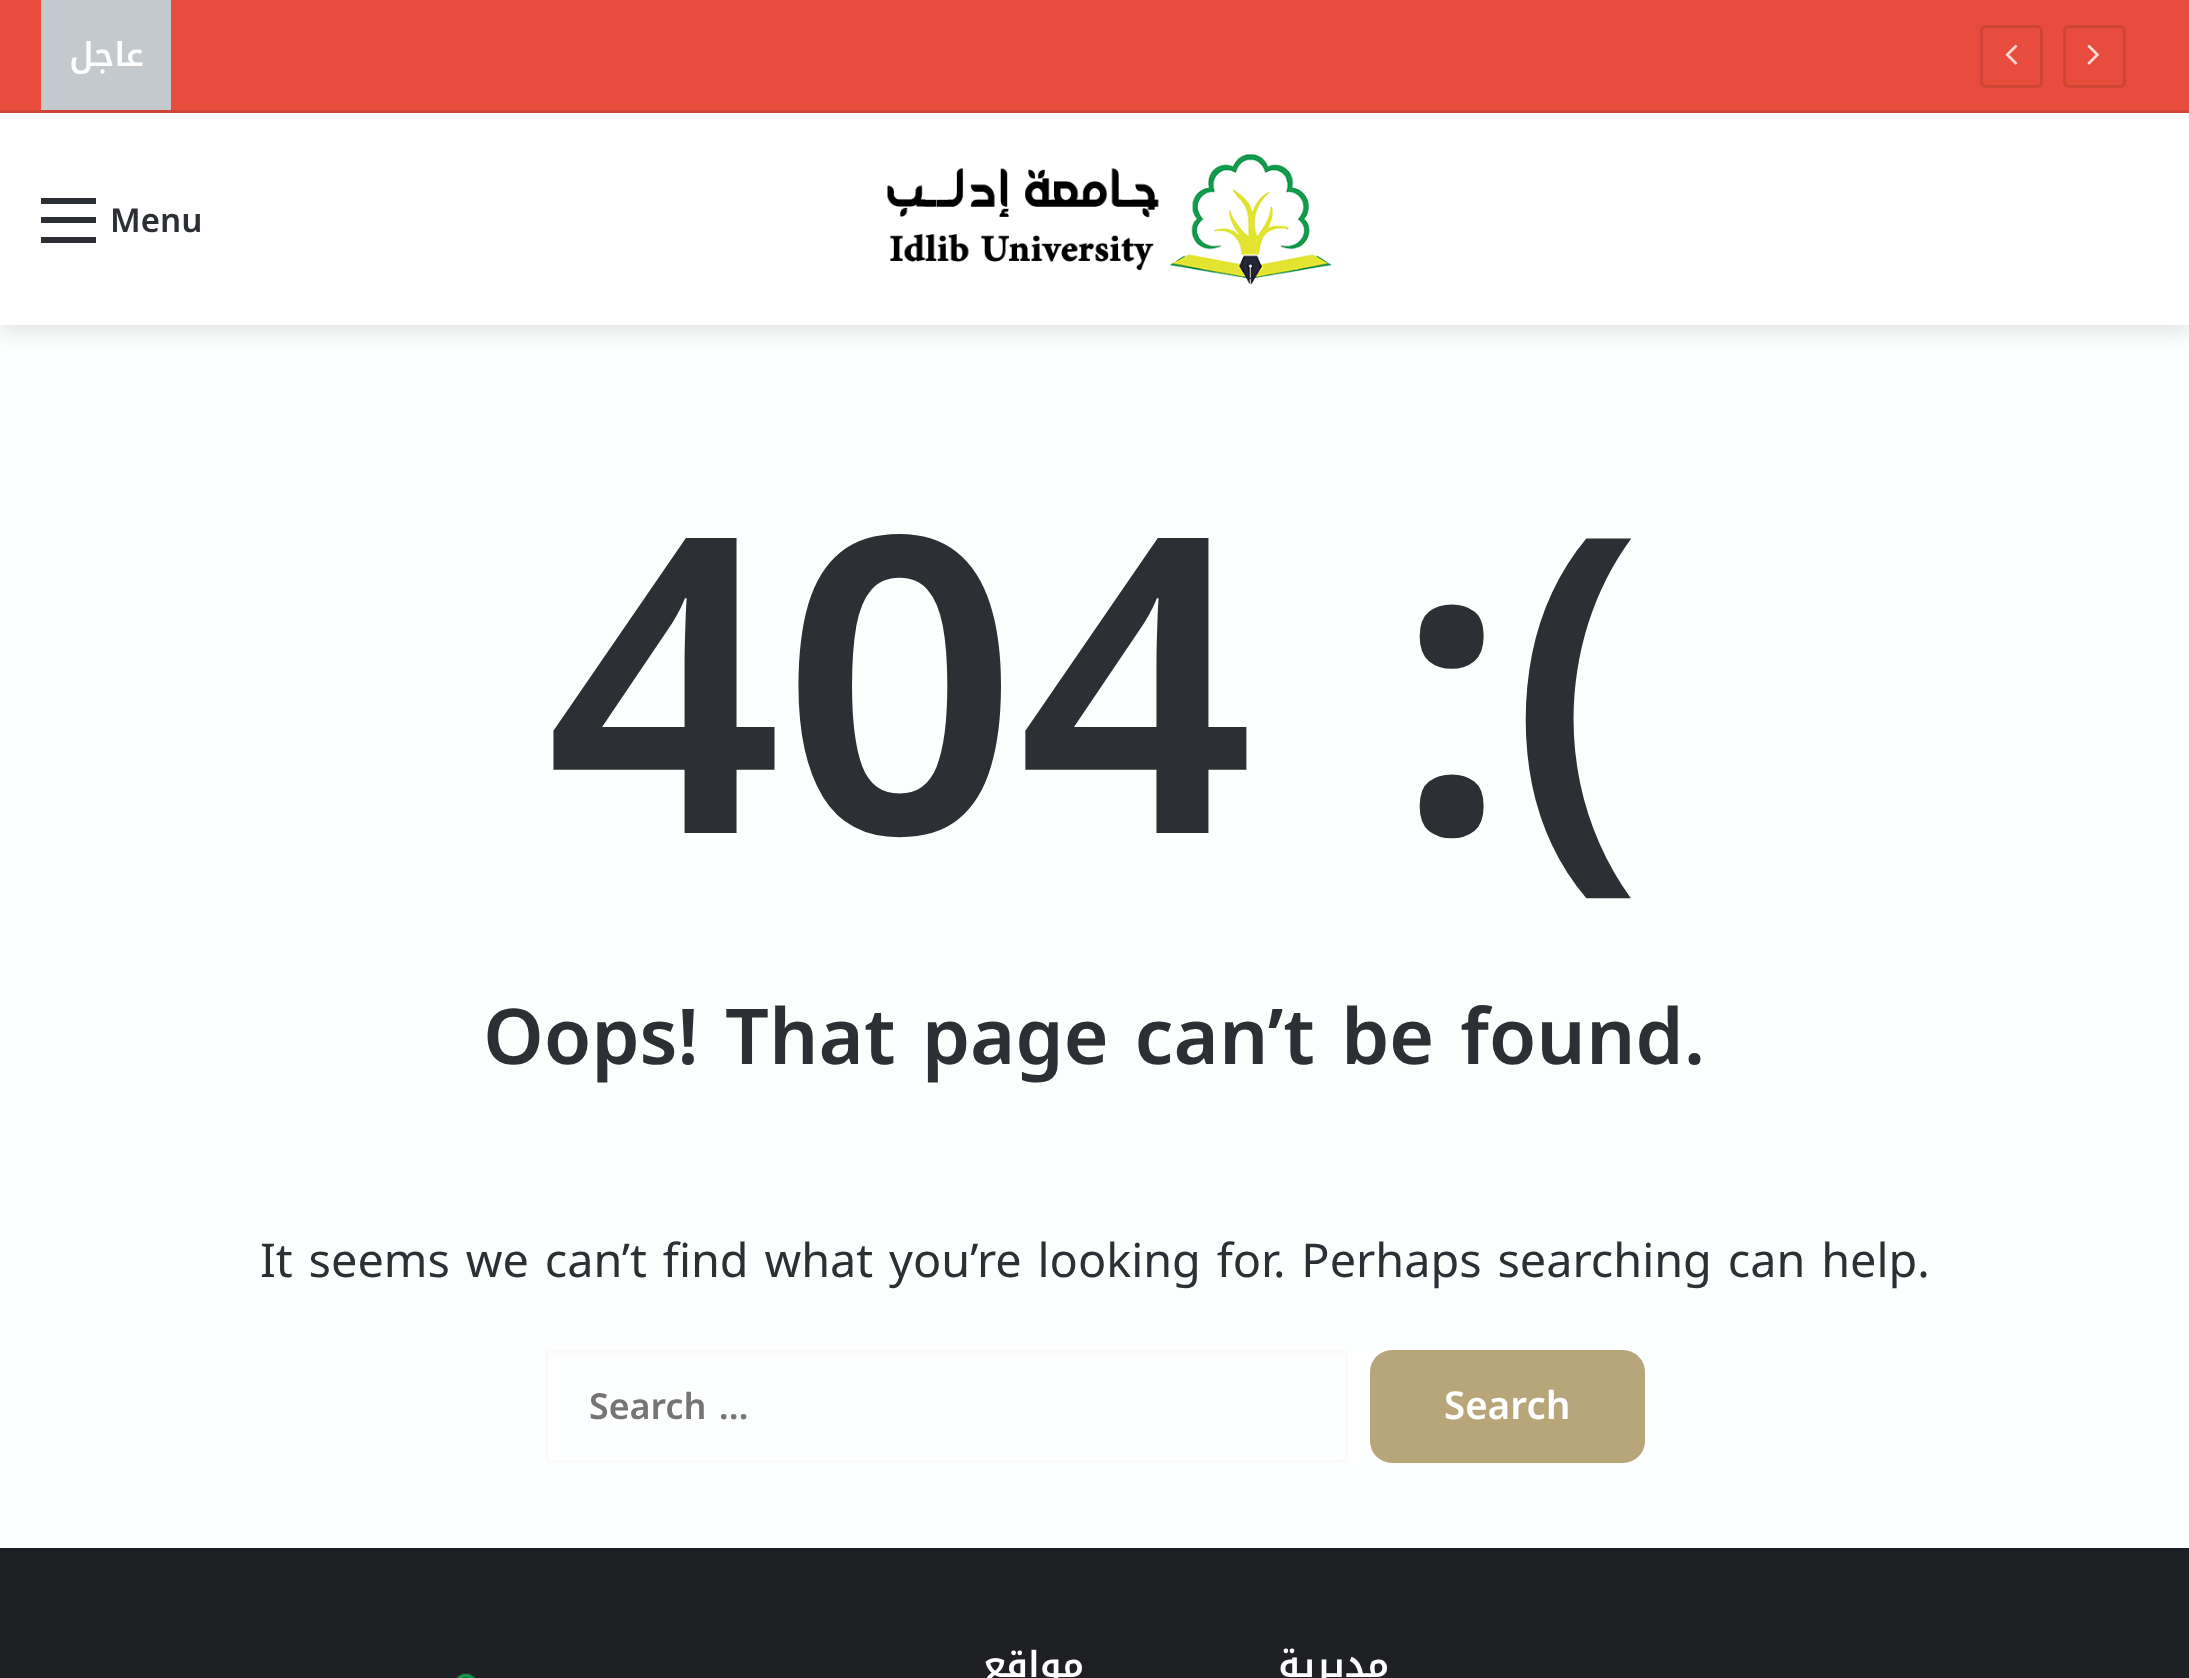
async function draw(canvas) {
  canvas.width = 2189;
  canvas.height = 1678;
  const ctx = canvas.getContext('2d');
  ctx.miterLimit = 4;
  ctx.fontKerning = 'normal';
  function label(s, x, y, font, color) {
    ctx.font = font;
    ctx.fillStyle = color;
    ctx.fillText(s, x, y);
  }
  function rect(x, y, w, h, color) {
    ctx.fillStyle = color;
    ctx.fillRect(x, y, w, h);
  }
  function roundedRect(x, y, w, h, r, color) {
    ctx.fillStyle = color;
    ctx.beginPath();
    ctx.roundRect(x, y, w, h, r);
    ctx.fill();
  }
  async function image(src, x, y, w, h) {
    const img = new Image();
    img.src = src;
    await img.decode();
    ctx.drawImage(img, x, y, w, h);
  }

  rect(0, 0, 2189, 1678, '#fcfffd');
  ctx.fillStyle = '#0000001a';
  ctx.filter = 'blur(9.5px)';
  ctx.beginPath();
  ctx.rect(0, 121, 2189, 212);
  ctx.fill();
  ctx.filter = 'none';
  rect(0, 0, 2189, 110, '#e74c3c');
  rect(0, 110, 2189, 3, '#d04436');
  rect(41, 0, 130, 110, '#c3c9cc');
  ctx.direction = 'rtl';
  label('عاجل', 144, 66, '600 33px Noto Kufi Arabic', '#fff');
  ctx.beginPath();
  ctx.roundRect(1981.5, 26.5, 60, 60, 4.5);
  ctx.strokeStyle = '#d04436';
  ctx.lineWidth = 3;
  ctx.stroke();
  await image('assets/img1.png', 2005, 44, 13, 21);
  ctx.beginPath();
  ctx.roundRect(2064.5, 26.5, 60, 60, 4.5);
  ctx.stroke();
  await image('assets/img2.png', 2087, 44, 13, 21);
  rect(0, 113, 2189, 212, '#fff');
  rect(41, 217, 55, 6, '#2c2f34');
  rect(41, 198, 55, 6, '#2c2f34');
  rect(41, 237, 55, 6, '#2c2f34');
  ctx.direction = 'ltr';
  label('Menu', 110, 232, '600 33px Noto Kufi Arabic', '#2c2f34');
  await image('assets/img3.png', 887, 154, 445, 131);
  label('404 :(', 546, 833, '600 412.5px Noto Kufi Arabic', '#2c2f34');
  label('Oops! That page can’t be found.', 483, 1064, '600 77px Noto Kufi Arabic', '#2c2f34');
  label('It seems we can’t find what you’re looking for. Perhaps searching can help.', 260, 1277, '46.75px Noto Kufi Arabic', '#2c2f34');
  ctx.beginPath();
  ctx.roundRect(546.5, 1351.5, 800, 110, 4.5);
  ctx.strokeStyle = '#fcfaf9';
  ctx.stroke();
  label('Search …', 589, 1419, '600 35.75px Noto Kufi Arabic', '#757575');
  roundedRect(1370, 1350, 275, 113, 22, '#b8a57a');
  label('Search', 1444, 1419, '600 38.5px Noto Kufi Arabic', '#fff');
  rect(0, 1548, 2189, 130, '#1f2024');
  await image('assets/img4.png', 456, 1673, 20, 5);
  ctx.direction = 'rtl';
  label('مواقع', 1084, 1677, '600 35.75px Noto Kufi Arabic', '#fff');
  label('مديرية', 1389, 1677, '600 35.75px Noto Kufi Arabic', '#fff');
}

draw(document.querySelector('canvas'));
